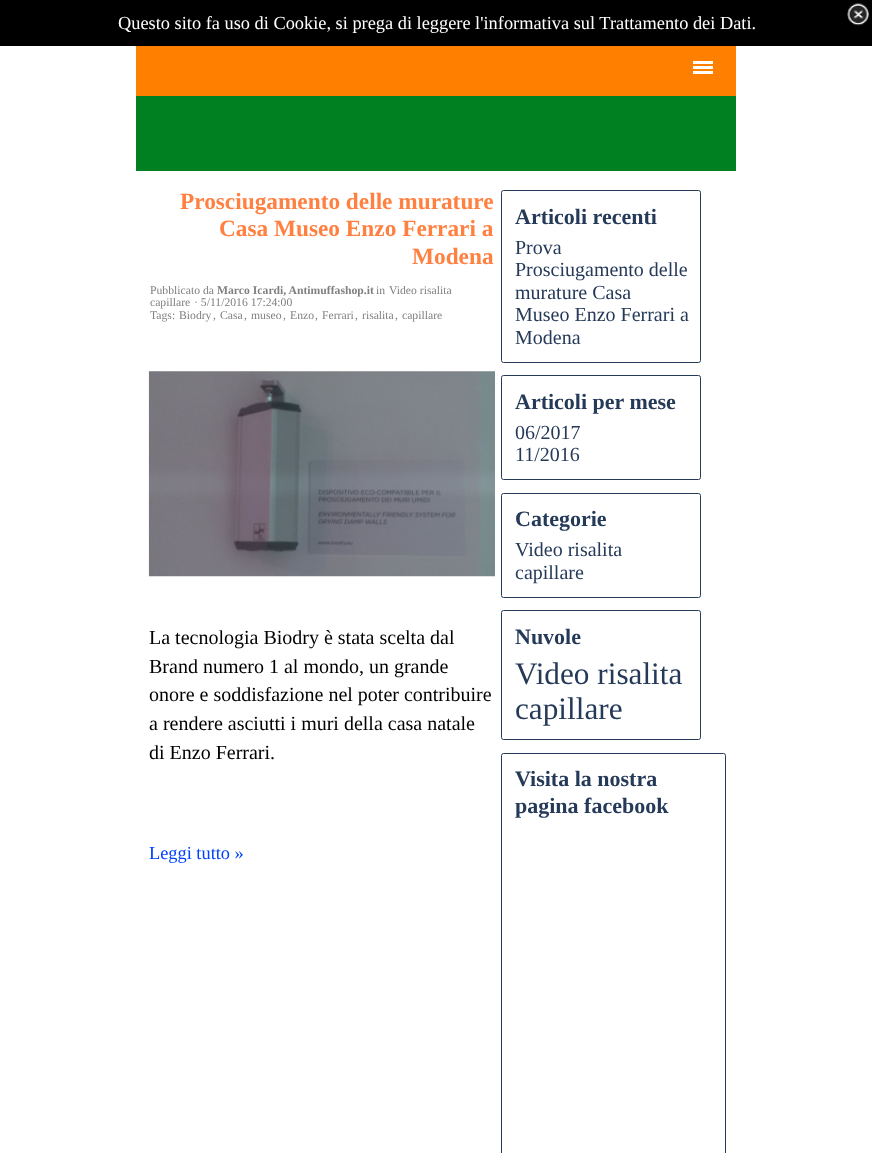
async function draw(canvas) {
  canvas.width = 872;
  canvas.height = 1153;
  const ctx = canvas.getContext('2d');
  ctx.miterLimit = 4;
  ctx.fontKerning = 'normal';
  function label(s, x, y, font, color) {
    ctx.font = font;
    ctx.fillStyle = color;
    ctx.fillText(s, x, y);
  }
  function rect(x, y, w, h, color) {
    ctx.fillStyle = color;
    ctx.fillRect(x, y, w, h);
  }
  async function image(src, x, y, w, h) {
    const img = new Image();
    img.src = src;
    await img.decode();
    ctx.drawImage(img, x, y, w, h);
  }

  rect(0, 0, 872, 1153, '#fff');
  rect(0, 0, 872, 46, '#000');
  label('Questo sito fa uso di Cookie, si prega di leggere l\'informativa sul Trattamento dei Dati.', 118, 29, '18.35px Liberation Serif', '#fff');
  await image('assets/img1.png', 847, 3, 22, 23);
  rect(136, 46, 600, 50, '#ff8000');
  rect(693, 61, 20, 3, '#fff');
  rect(693, 66, 20, 3, '#fff');
  rect(693, 71, 20, 3, '#fff');
  rect(136, 96, 600, 75, '#008020');
  label('Prosciugamento delle murature', 180, 209, 'bold 23.3px Liberation Serif', '#ff8040');
  label('Casa Museo Enzo Ferrari a', 219, 236, 'bold 23.3px Liberation Serif', '#ff8040');
  label('Modena', 412, 264, 'bold 23.3px Liberation Serif', '#ff8040');
  label('Pubblicato da', 150, 294, '11.7px Liberation Serif', '#808080');
  label('Marco Icardi, Antimuffashop.it', 217, 294, 'bold 11.7px Liberation Serif', '#808080');
  label('in', 376, 294, '11.7px Liberation Serif', '#808080');
  label('Video risalita', 389, 294, '11.7px Liberation Serif', '#808080');
  label('capillare', 150, 306, '11.7px Liberation Serif', '#808080');
  label('· 5/11/2016 17:24:00', 194, 306, '11.7px Liberation Serif', '#808080');
  label('Tags:', 150, 319, '11.7px Liberation Serif', '#808080');
  label('Biodry', 179, 319, '11.7px Liberation Serif', '#808080');
  label(',', 213, 319, '11.7px Liberation Serif', '#808080');
  label('Casa', 220, 319, '11.7px Liberation Serif', '#808080');
  label(',', 244, 319, '11.7px Liberation Serif', '#808080');
  label('museo', 251, 319, '11.7px Liberation Serif', '#808080');
  label(',', 283, 319, '11.7px Liberation Serif', '#808080');
  label('Enzo', 290, 319, '11.7px Liberation Serif', '#808080');
  label(',', 315, 319, '11.7px Liberation Serif', '#808080');
  label('Ferrari', 322, 319, '11.7px Liberation Serif', '#808080');
  label(',', 355, 319, '11.7px Liberation Serif', '#808080');
  label('risalita', 362, 319, '11.7px Liberation Serif', '#808080');
  label(',', 395, 319, '11.7px Liberation Serif', '#808080');
  label('capillare', 402, 319, '11.7px Liberation Serif', '#808080');
  await image('assets/img2.png', 148, 371, 347, 206);
  label('La tecnologia Biodry è stata scelta dal', 149, 644, '20px Liberation Serif', '#000');
  label('Brand numero 1 al mondo, un grande', 149, 673, '20px Liberation Serif', '#000');
  label('onore e soddisfazione nel poter contribuire', 149, 701, '20px Liberation Serif', '#000');
  label('a rendere asciutti i muri della casa natale', 149, 730, '20px Liberation Serif', '#000');
  label('di Enzo Ferrari.', 149, 759, '20px Liberation Serif', '#000');
  label('Leggi tutto »', 149, 859, '18.35px Liberation Serif', '#0040ff');
  ctx.beginPath();
  ctx.roundRect(501.5, 190.5, 199, 172, 2);
  ctx.strokeStyle = '#253a58';
  ctx.stroke();
  label('Articoli recenti', 515, 224, 'bold 22px Liberation Serif', '#253a58');
  label('Prova', 515, 254, '20px Liberation Serif', '#253a58');
  label('Prosciugamento delle', 515, 276, '20px Liberation Serif', '#253a58');
  label('murature Casa', 515, 299, '20px Liberation Serif', '#253a58');
  label('Museo Enzo Ferrari a', 515, 321, '20px Liberation Serif', '#253a58');
  label('Modena', 515, 344, '20px Liberation Serif', '#253a58');
  ctx.beginPath();
  ctx.roundRect(501.5, 375.5, 199, 104, 2);
  ctx.stroke();
  label('Articoli per mese', 515, 409, 'bold 22px Liberation Serif', '#253a58');
  label('06/2017', 515, 439, '20px Liberation Serif', '#253a58');
  label('11/2016', 515, 461, '20px Liberation Serif', '#253a58');
  ctx.beginPath();
  ctx.roundRect(501.5, 493.5, 199, 104, 2);
  ctx.stroke();
  label('Categorie', 515, 526, 'bold 22px Liberation Serif', '#253a58');
  label('Video risalita', 515, 556, '20px Liberation Serif', '#253a58');
  label('capillare', 515, 579, '20px Liberation Serif', '#253a58');
  ctx.beginPath();
  ctx.roundRect(501.5, 610.5, 199, 129, 2);
  ctx.stroke();
  label('Nuvole', 515, 644, 'bold 22px Liberation Serif', '#253a58');
  label('Video risalita', 515, 684, '31.25px Liberation Serif', '#253a58');
  label('capillare', 515, 719, '31.25px Liberation Serif', '#253a58');
  ctx.beginPath();
  ctx.roundRect(501.5, 753.5, 224, 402, 2);
  ctx.stroke();
  label('Visita la nostra', 515, 786, 'bold 22px Liberation Serif', '#253a58');
  label('pagina facebook', 515, 813, 'bold 22px Liberation Serif', '#253a58');
}

draw(document.querySelector('canvas'));
